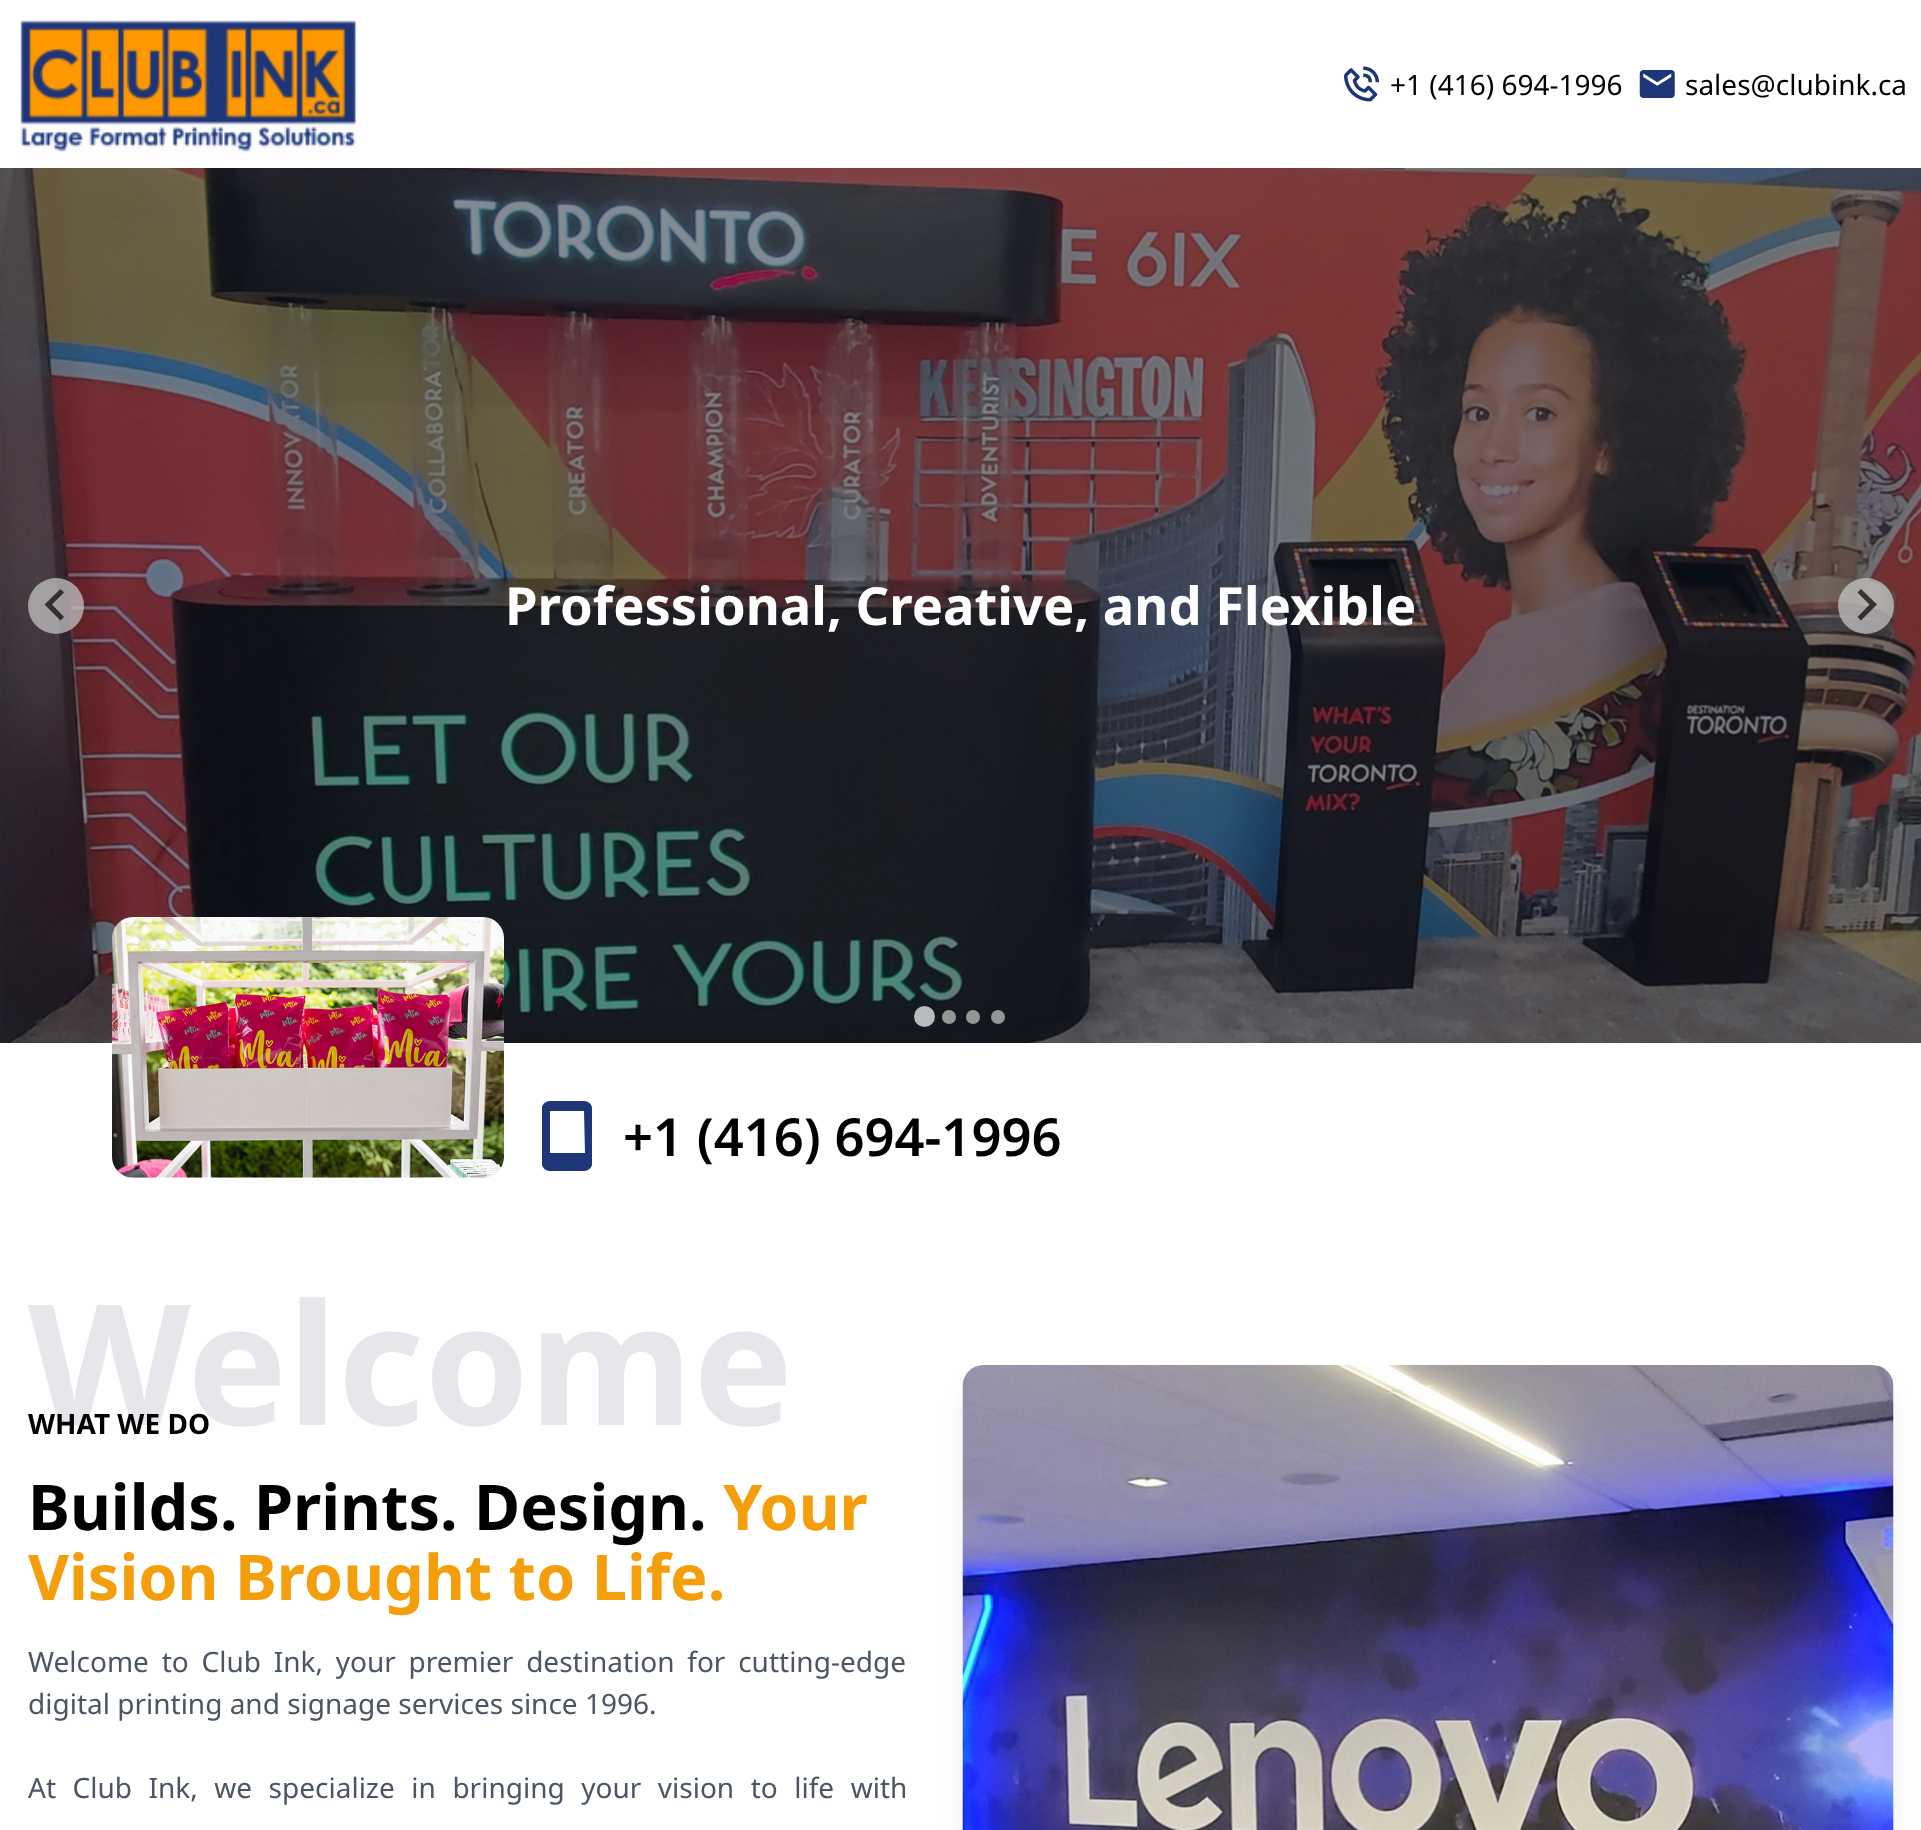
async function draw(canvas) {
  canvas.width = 1921;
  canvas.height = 1830;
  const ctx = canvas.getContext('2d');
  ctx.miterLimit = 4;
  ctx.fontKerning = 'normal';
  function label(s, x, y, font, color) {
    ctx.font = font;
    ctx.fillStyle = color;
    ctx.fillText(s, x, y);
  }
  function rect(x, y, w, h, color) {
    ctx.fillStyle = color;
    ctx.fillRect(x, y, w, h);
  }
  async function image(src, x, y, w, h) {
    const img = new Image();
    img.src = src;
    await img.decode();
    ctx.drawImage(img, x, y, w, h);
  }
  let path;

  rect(0, 0, 1921, 1830, '#fff');
  await image('assets/img1.png', 20, 20, 337, 133);
  await image('assets/img2.png', 1344, 66, 35, 36);
  label('+1 (416) 694-1996', 1390, 95, '28px Noto Sans', '#000');
  await image('assets/img3.png', 1639, 70, 36, 28);
  label('sales@clubink.ca', 1685, 95, '28px Noto Sans', '#000');
  await image('assets/img4.png', 0, 168, 1921, 875);
  ctx.fillStyle = '#ccccccb3';
  ctx.beginPath();
  ctx.arc(56, 606, 28, 0, 2 * Math.PI);
  ctx.fill();
  ctx.fillStyle = '#000000b3';
  path = new Path2D('M60.5 589L64 592.5L52 604.5L64 617L60.5 620.5L44.5 604.5Z');
  ctx.fill(path);
  ctx.fillStyle = '#ccccccb3';
  ctx.beginPath();
  ctx.arc(1866, 606, 28, 0, 2 * Math.PI);
  ctx.fill();
  ctx.fillStyle = '#000000b3';
  path = new Path2D('M1861 589L1857.5 592.5L1869.5 604.5L1857.5 617L1861 620.5L1877 604.5Z');
  ctx.fill(path);
  label('Professional, Creative, and Flexible', 505, 625, 'bold 52.5px Noto Sans', '#fff');
  ctx.fillStyle = '#ffffffb3';
  ctx.beginPath();
  ctx.arc(924.5, 1016.5, 10.5, 0, 2 * Math.PI);
  ctx.fill();
  ctx.fillStyle = '#959698';
  ctx.beginPath();
  ctx.arc(949, 1017, 7, 0, 2 * Math.PI);
  ctx.fill();
  ctx.beginPath();
  ctx.arc(973, 1017, 7, 0, 2 * Math.PI);
  ctx.fill();
  ctx.fillStyle = '#ccccccb3';
  ctx.beginPath();
  ctx.arc(998, 1017, 7, 0, 2 * Math.PI);
  ctx.fill();
  await image('assets/img5.png', 112, 917, 392, 261);
  ctx.fillStyle = '#1e3578';
  path = new Path2D('M584 1101H550C546 1101 542 1104 542 1108V1164C542 1168 546 1171 550 1171H584C588 1171 592 1168 592 1164V1108C592 1104 588 1101 584 1101ZM550 1153V1111H584L585 1153Z');
  ctx.fill(path);
  label('+1 (416) 694-1996', 623, 1156, '600 52.5px Noto Sans', '#000');
  label('Welcome', 28, 1425, 'bold 168px Noto Sans', '#e5e7eb');
  label('WHAT WE DO', 28, 1434, 'bold 28px Noto Sans', '#000');
  label('Builds. Prints. Design.', 28, 1530, 'bold 63px Noto Sans', '#000');
  label('Your', 723, 1530, 'bold 63px Noto Sans', '#f59e0b');
  label('Vision Brought to Life.', 28, 1600, 'bold 63px Noto Sans', '#f59e0b');
  ctx.wordSpacing = '5.5px';
  label('Welcome to Club Ink, your premier destination for cutting-edge', 28, 1672, '28px Noto Sans', '#4b5563');
  ctx.wordSpacing = '0px';
  label('digital printing and signage services since 1996.', 28, 1714, '28px Noto Sans', '#4b5563');
  ctx.wordSpacing = '9.25px';
  label('At Club Ink, we specialize in bringing your vision to life with', 28, 1798, '28px Noto Sans', '#4b5563');
  ctx.fillStyle = '#0000001a';
  ctx.filter = 'blur(13px)';
  ctx.beginPath();
  ctx.roundRect(968, 1388, 920, 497, 16);
  ctx.fill();
  ctx.filter = 'none';
  await image('assets/img6.png', 962, 1365, 932, 465);
}

draw(document.querySelector('canvas'));
